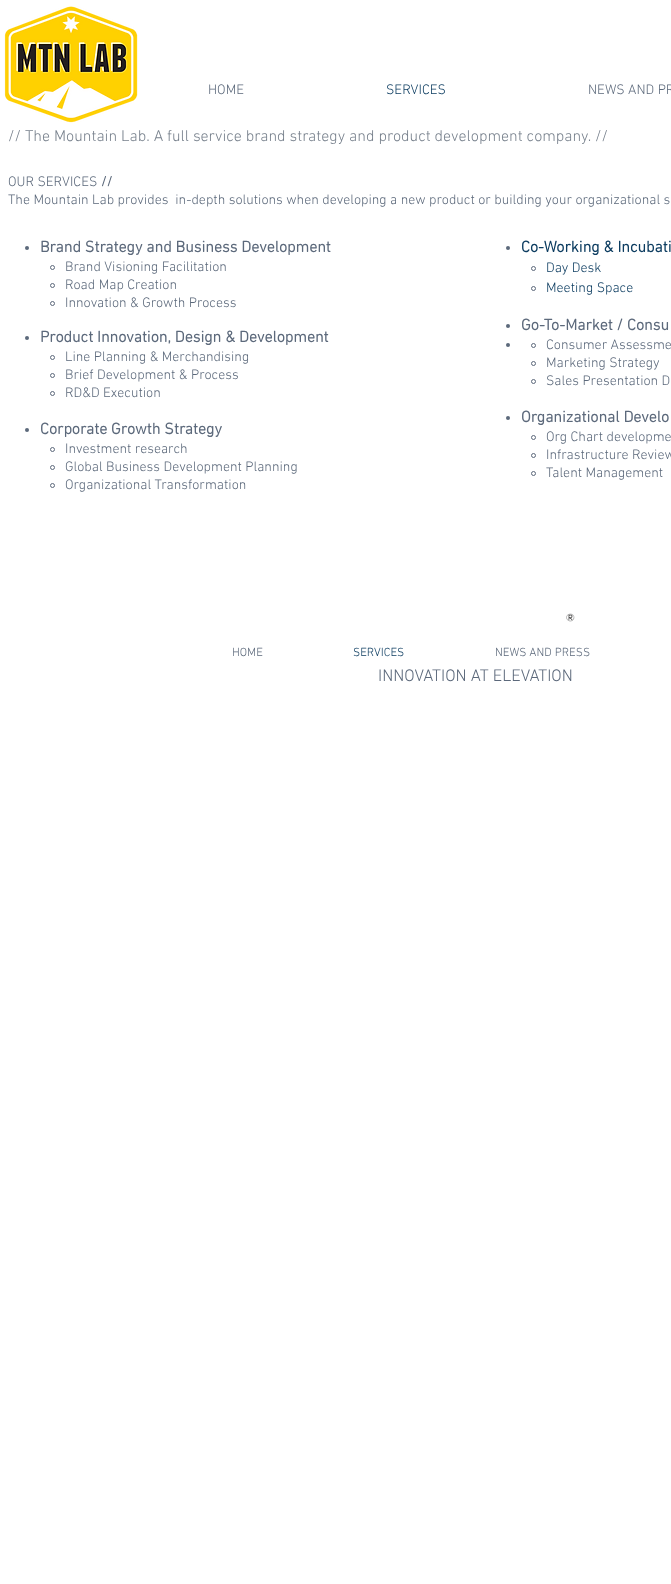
async function draw(canvas) {
  canvas.width = 671;
  canvas.height = 1584;
  const ctx = canvas.getContext('2d');
  ctx.miterLimit = 4;
  ctx.fontKerning = 'normal';
  function label(s, x, y, font, color) {
    ctx.font = font;
    ctx.fillStyle = color;
    ctx.fillText(s, x, y);
  }
  function rect(x, y, w, h, color) {
    ctx.fillStyle = color;
    ctx.fillRect(x, y, w, h);
  }
  async function image(src, x, y, w, h) {
    const img = new Image();
    img.src = src;
    await img.decode();
    ctx.drawImage(img, x, y, w, h);
  }

  rect(0, 0, 671, 1584, '#fff');
  await image('assets/img1.png', 4, 6, 134, 117);
  label('HOME', 208, 94, '300 14px "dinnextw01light"', '#5c697b');
  label('SERVICES', 386, 94, '300 14px "dinnextw01light"', '#0c3c60');
  label('NEWS AND PR', 588, 94, '300 14px "dinnextw01light"', '#5c697b');
  label('// The Mountain Lab. A full service brand strategy and product development company. //', 8, 141, '300 16px "dinnextw01light"', '#77808c');
  label('OUR SERVICES', 8, 186, '300 14px "dinnextw01light"', '#5c697b');
  label('//', 101, 186, 'bold 14px "dinnextw01light"', '#5c697b');
  label('The Mountain Lab provides  in-depth solutions when developing a new product or building your organizational s', 8, 204, '300 14px "dinnextw01light"', '#5c697b');
  ctx.beginPath();
  ctx.arc(27, 248, 2, 0, 2 * Math.PI);
  ctx.fill();
  label('Brand Strategy and Business Development', 40, 252, 'bold 16px "dinnextw01light"', '#5c697b');
  ctx.beginPath();
  ctx.arc(52.5, 267.5, 2, 0, 2 * Math.PI);
  ctx.strokeStyle = '#5c697b';
  ctx.stroke();
  label('Brand Visioning Facilitation', 65, 271, '300 14px "dinnextw01light"', '#5c697b');
  ctx.beginPath();
  ctx.arc(52.5, 285.5, 2, 0, 2 * Math.PI);
  ctx.stroke();
  label('Road Map Creation', 65, 289, '300 14px "dinnextw01light"', '#5c697b');
  ctx.beginPath();
  ctx.arc(52.5, 303.5, 2, 0, 2 * Math.PI);
  ctx.stroke();
  label('Innovation & Growth Process', 65, 307, '300 14px "dinnextw01light"', '#5c697b');
  ctx.beginPath();
  ctx.arc(27, 338, 2, 0, 2 * Math.PI);
  ctx.fill();
  label('Product Innovation, Design & Development', 40, 342, 'bold 16px "dinnextw01light"', '#5c697b');
  ctx.beginPath();
  ctx.arc(52.5, 357.5, 2, 0, 2 * Math.PI);
  ctx.stroke();
  label('Line Planning & Merchandising', 65, 361, '300 14px "dinnextw01light"', '#5c697b');
  ctx.beginPath();
  ctx.arc(52.5, 375.5, 2, 0, 2 * Math.PI);
  ctx.stroke();
  label('Brief Development & Process', 65, 379, '300 14px "dinnextw01light"', '#5c697b');
  ctx.beginPath();
  ctx.arc(52.5, 393.5, 2, 0, 2 * Math.PI);
  ctx.stroke();
  label('RD&D Execution', 65, 397, '300 14px "dinnextw01light"', '#5c697b');
  ctx.beginPath();
  ctx.arc(27, 430, 2, 0, 2 * Math.PI);
  ctx.fill();
  label('Corporate Growth Strategy', 40, 434, 'bold 16px "dinnextw01light"', '#5c697b');
  ctx.beginPath();
  ctx.arc(52.5, 449.5, 2, 0, 2 * Math.PI);
  ctx.stroke();
  label('Investment research', 65, 453, '300 14px "dinnextw01light"', '#5c697b');
  ctx.beginPath();
  ctx.arc(52.5, 467.5, 2, 0, 2 * Math.PI);
  ctx.stroke();
  label('Global Business Development Planning', 65, 471, '300 14px "dinnextw01light"', '#5c697b');
  ctx.beginPath();
  ctx.arc(52.5, 485.5, 2, 0, 2 * Math.PI);
  ctx.stroke();
  label('Organizational Transformation', 65, 489, '300 14px "dinnextw01light"', '#5c697b');
  ctx.beginPath();
  ctx.arc(508, 248, 2, 0, 2 * Math.PI);
  ctx.fill();
  label('Co-Working & Incubati', 521, 252, 'bold 16px "dinnextw01light"', '#0c3c60');
  ctx.beginPath();
  ctx.arc(533.5, 268.5, 2, 0, 2 * Math.PI);
  ctx.stroke();
  label('Day Desk', 546, 272, '300 14px "dinnextw01light"', '#0c3c60');
  ctx.beginPath();
  ctx.arc(533.5, 288.5, 2, 0, 2 * Math.PI);
  ctx.stroke();
  label('Meeting Space', 546, 292, '300 14px "dinnextw01light"', '#0c3c60');
  ctx.fillStyle = '#5c697b';
  ctx.beginPath();
  ctx.arc(508, 326, 2, 0, 2 * Math.PI);
  ctx.fill();
  label('Go-To-Market / Consu', 521, 330, 'bold 16px "dinnextw01light"', '#5c697b');
  ctx.beginPath();
  ctx.arc(508, 345, 2, 0, 2 * Math.PI);
  ctx.fill();
  ctx.beginPath();
  ctx.arc(533.5, 345.5, 2, 0, 2 * Math.PI);
  ctx.stroke();
  label('Consumer Assessme', 546, 349, '300 14px "dinnextw01light"', '#5c697b');
  ctx.beginPath();
  ctx.arc(533.5, 363.5, 2, 0, 2 * Math.PI);
  ctx.stroke();
  label('Marketing Strategy', 546, 367, '300 14px "dinnextw01light"', '#5c697b');
  ctx.beginPath();
  ctx.arc(533.5, 381.5, 2, 0, 2 * Math.PI);
  ctx.stroke();
  label('Sales Presentation D', 546, 385, '300 14px "dinnextw01light"', '#5c697b');
  ctx.beginPath();
  ctx.arc(508, 418, 2, 0, 2 * Math.PI);
  ctx.fill();
  label('Organizational Develo', 521, 422, 'bold 16px "dinnextw01light"', '#5c697b');
  ctx.beginPath();
  ctx.arc(533.5, 437.5, 2, 0, 2 * Math.PI);
  ctx.stroke();
  label('Org Chart developme', 546, 441, '300 14px "dinnextw01light"', '#5c697b');
  ctx.beginPath();
  ctx.arc(533.5, 455.5, 2, 0, 2 * Math.PI);
  ctx.stroke();
  label('Infrastructure Review', 546, 459, '300 14px "dinnextw01light"', '#5c697b');
  ctx.beginPath();
  ctx.arc(533.5, 473.5, 2, 0, 2 * Math.PI);
  ctx.stroke();
  label('Talent Management', 546, 477, '300 14px "dinnextw01light"', '#5c697b');
  await image('assets/img2.png', 566, 613, 9, 9);
  label('HOME', 232, 656, '300 12px "dinnextw01light"', '#5c697b');
  label('SERVICES', 353, 656, '300 12px "dinnextw01light"', '#0c3c60');
  label('NEWS AND PRESS', 495, 656, '300 12px "dinnextw01light"', '#5c697b');
  label('INNOVATION AT ELEVATION', 378, 681, '300 17px "dinnextw01light"', '#5c697b');
}

draw(document.querySelector('canvas'));
